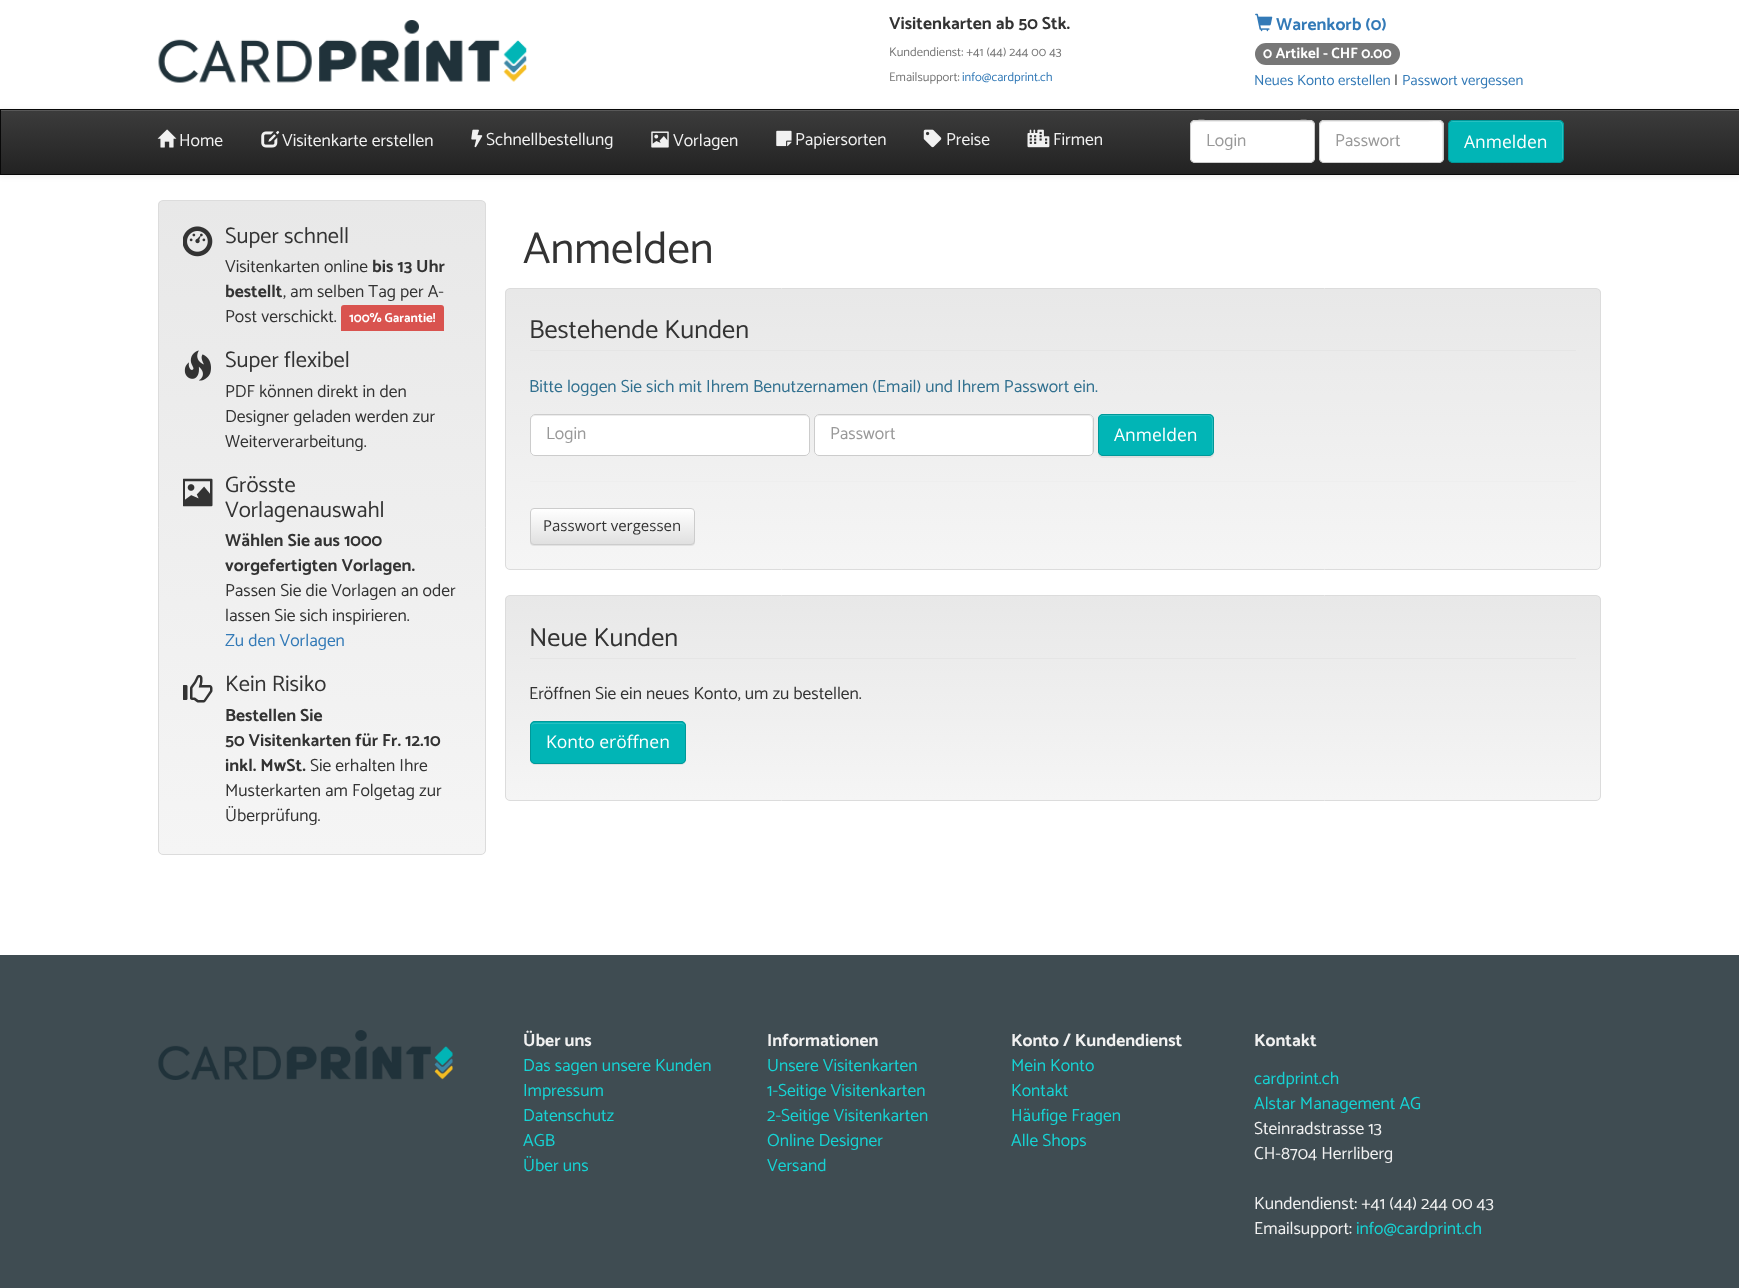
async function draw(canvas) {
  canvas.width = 1739;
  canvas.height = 1288;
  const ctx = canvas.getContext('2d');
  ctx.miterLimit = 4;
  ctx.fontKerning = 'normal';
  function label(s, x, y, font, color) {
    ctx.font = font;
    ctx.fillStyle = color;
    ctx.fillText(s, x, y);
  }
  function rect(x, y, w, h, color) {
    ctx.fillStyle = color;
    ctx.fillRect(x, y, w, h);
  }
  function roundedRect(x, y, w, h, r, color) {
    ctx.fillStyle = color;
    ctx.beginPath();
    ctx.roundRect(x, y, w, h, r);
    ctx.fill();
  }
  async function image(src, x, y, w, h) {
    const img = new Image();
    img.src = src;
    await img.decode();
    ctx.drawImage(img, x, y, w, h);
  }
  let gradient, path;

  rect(0, 0, 1739, 1288, '#fff');
  await image('assets/img1.png', 158, 20, 369, 63);
  label('Visitenkarten ab 50 Stk.', 889, 29, 'bold 17.5px Catamaran', '#333');
  label('Kundendienst: +41 (44) 244 00 43', 889, 56, '12.6px Catamaran', '#777');
  label('Emailsupport:', 889, 81, '12.6px Catamaran', '#777');
  label('info@cardprint.ch', 962, 81, '12.6px Catamaran', '#337ab7');
  await image('assets/img2.png', 1255, 13, 18, 19);
  label('Warenkorb (0)', 1276, 30, 'bold 17.5px Catamaran', '#337ab7');
  roundedRect(1255, 43, 145, 22, 11, '#777');
  label('0 Artikel - CHF 0.00', 1263, 58, 'bold 15px Catamaran', '#fff');
  label('Neues Konto erstellen', 1254, 85, '14.9px Catamaran', '#337ab7');
  label('|', 1394, 85, '14.9px Catamaran', '#333');
  label('Passwort vergessen', 1402, 85, '14.9px Catamaran', '#337ab7');
  ctx.fillStyle = '#00000012';
  ctx.filter = 'blur(3px)';
  ctx.beginPath();
  ctx.rect(0, 110, 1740, 66);
  ctx.fill();
  ctx.filter = 'none';
  gradient = ctx.createLinearGradient(870, 110, 870, 174);
  gradient.addColorStop(0, '#3c3c3c');
  gradient.addColorStop(1, '#222');
  ctx.fillStyle = gradient;
  ctx.fillRect(1, 111, 1738, 63);
  rect(1, 110, 1738, 1, '#595959');
  ctx.strokeStyle = '#080808';
  ctx.strokeRect(0.5, 109.5, 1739, 65);
  await image('assets/img3.png', 157, 129, 20, 19);
  label('Home', 179, 146, '17.5px Catamaran', '#f1f1f1');
  await image('assets/img4.png', 261, 131, 19, 17);
  label('Visitenkarte erstellen', 282, 146, '17.5px Catamaran', '#f1f1f1');
  await image('assets/img5.png', 471, 129, 12, 19);
  label('Schnellbestellung', 486, 145, '17.5px Catamaran', '#f1f1f1');
  await image('assets/img6.png', 651, 131, 18, 17);
  label('Vorlagen', 673, 146, '17.5px Catamaran', '#f1f1f1');
  await image('assets/img7.png', 776, 130, 16, 17);
  label('Papiersorten', 795, 145, '17.5px Catamaran', '#f1f1f1');
  await image('assets/img8.png', 923, 129, 19, 19);
  label('Preise', 946, 145, '17.5px Catamaran', '#f1f1f1');
  await image('assets/img9.png', 1027, 129, 23, 19);
  label('Firmen', 1053, 145, '17.5px Catamaran', '#f1f1f1');
  roundedRect(1190, 120, 125, 43, 5, '#fff');
  ctx.fillStyle = '#ececec';
  path = new Path2D('M1195 122H1310C1312 122 1314 124 1314 126C1314 116 1294 121 1291 121H1214C1211 121 1191 116 1191 126C1191 124 1193 122 1195 122Z');
  ctx.fill(path);
  ctx.beginPath();
  ctx.roundRect(1190.5, 120.5, 124, 42, 4.5);
  ctx.strokeStyle = '#ccc';
  ctx.stroke();
  label('Login', 1206, 146, '17.5px Catamaran', '#999');
  roundedRect(1319, 120, 125, 43, 5, '#fff');
  ctx.fillStyle = '#ececec';
  path = new Path2D('M1324 122H1420C1444 122 1442 117 1442 137V160C1443 159 1443 158 1443 157V125C1443 123 1441 121 1439 121H1324C1322 121 1320 123 1320 125V126C1320 124 1322 122 1324 122Z');
  ctx.fill(path);
  ctx.beginPath();
  ctx.roundRect(1319.5, 120.5, 124, 42, 4.5);
  ctx.stroke();
  label('Passwort', 1335, 146, '17.5px Catamaran', '#999');
  roundedRect(1448, 120, 116, 43, 5, '#01b5b6');
  ctx.fillStyle = '#27c0c1';
  path = new Path2D('M1452 122H1559C1563 122 1562 130 1562 132V160C1563 159 1563 158 1563 157V125C1563 123 1561 121 1559 121H1453C1451 121 1449 123 1449 125V126C1449 124 1450 122 1452 122Z');
  ctx.fill(path);
  ctx.beginPath();
  ctx.roundRect(1448.5, 120.5, 115, 42, 4.5);
  ctx.strokeStyle = '#009899';
  ctx.stroke();
  label('Anmelden', 1464, 148, '17.5px Open Sans', '#fff');
  ctx.save();
  ctx.beginPath();
  ctx.roundRect(158, 200, 328, 655, 5);
  ctx.clip();
  gradient = ctx.createLinearGradient(322, 201, 322, 854);
  gradient.addColorStop(0, '#e8e8e8');
  gradient.addColorStop(1, '#f5f5f5');
  ctx.fillStyle = gradient;
  ctx.fillRect(158, 201, 328, 653);
  ctx.restore();
  ctx.beginPath();
  ctx.roundRect(158.5, 200.5, 327, 654, 4.5);
  ctx.strokeStyle = '#dcdcdc';
  ctx.stroke();
  await image('assets/img10.png', 183, 226, 30, 31);
  label('Super schnell', 225, 243, '22.5px Catamaran', '#333');
  label('Visitenkarten online', 225, 272, '17.5px Catamaran', '#333');
  label('bis 13 Uhr', 372, 272, 'bold 17.5px Catamaran', '#333');
  label('bestellt', 225, 297, 'bold 17.5px Catamaran', '#333');
  label(', am selben Tag per A-', 283, 297, '17.5px Catamaran', '#333');
  label('Post verschickt.', 225, 322, '17.5px Catamaran', '#333');
  ctx.fillStyle = '#d9534f';
  ctx.beginPath();
  ctx.roundRect(341, 305, 103, 26, [3, 3, 0, 0]);
  ctx.fill();
  label('100% Garantie!', 349, 322, 'bold 13px Catamaran', '#fff');
  await image('assets/img11.png', 184, 350, 27, 31);
  label('Super flexibel', 225, 367, '22.5px Catamaran', '#333');
  label('PDF können direkt in den', 225, 397, '17.5px Catamaran', '#333');
  label('Designer geladen werden zur', 225, 422, '17.5px Catamaran', '#333');
  label('Weiterverarbeitung.', 225, 447, '17.5px Catamaran', '#333');
  await image('assets/img12.png', 183, 478, 30, 29);
  label('Grösste', 225, 492, '22.5px Catamaran', '#333');
  label('Vorlagenauswahl', 225, 517, '22.5px Catamaran', '#333');
  label('Wählen Sie aus 1000', 225, 546, 'bold 17.5px Catamaran', '#333');
  label('vorgefertigten Vorlagen.', 225, 571, 'bold 17.5px Catamaran', '#333');
  label('Passen Sie die Vorlagen an oder', 225, 596, '17.5px Catamaran', '#333');
  label('lassen Sie sich inspirieren.', 225, 621, '17.5px Catamaran', '#333');
  label('Zu den Vorlagen', 225, 646, '17.5px Catamaran', '#337ab7');
  await image('assets/img13.png', 183, 675, 30, 28);
  label('Kein Risiko', 225, 691, '22.5px Catamaran', '#333');
  label('Bestellen Sie', 225, 721, 'bold 17.5px Catamaran', '#333');
  label('50 Visitenkarten für Fr. 12.10', 225, 746, 'bold 17.5px Catamaran', '#333');
  label('inkl. MwSt.', 225, 771, 'bold 17.5px Catamaran', '#333');
  label('Sie erhalten Ihre', 310, 771, '17.5px Catamaran', '#333');
  label('Musterkarten am Folgetag zur', 225, 796, '17.5px Catamaran', '#333');
  label('Überprüfung.', 225, 821, '17.5px Catamaran', '#333');
  label('Anmelden', 523, 263, '45px Catamaran', '#333');
  ctx.save();
  ctx.beginPath();
  ctx.roundRect(505, 288, 1096, 282, 5);
  ctx.clip();
  gradient = ctx.createLinearGradient(1053, 289, 1053, 569);
  gradient.addColorStop(0, '#e8e8e8');
  gradient.addColorStop(1, '#f5f5f5');
  ctx.fillStyle = gradient;
  ctx.fillRect(505, 289, 1096, 280);
  ctx.restore();
  ctx.beginPath();
  ctx.roundRect(505.5, 288.5, 1095, 281, 4.5);
  ctx.stroke();
  rect(530, 350, 1046, 1, '#e5e5e5');
  label('Bestehende Kunden', 529, 338, '26.25px Catamaran', '#333');
  label('Bitte loggen Sie sich mit Ihrem Benutzernamen (Email) und Ihrem Passwort ein.', 529, 392, '17.5px Catamaran', '#31708f');
  roundedRect(530, 414, 280, 42, 5, '#fff');
  ctx.fillStyle = '#ececec';
  path = new Path2D('M535 416H805C807 416 809 418 809 420C809 417 808 415 805 415H535C532 415 531 417 531 420C531 418 533 416 535 416Z');
  ctx.fill(path);
  ctx.beginPath();
  ctx.roundRect(530.5, 414.5, 279, 41, 4.5);
  ctx.strokeStyle = '#ccc';
  ctx.stroke();
  label('Login', 546, 439, '17.5px Catamaran', '#999');
  roundedRect(814, 414, 280, 42, 5, '#fff');
  ctx.fillStyle = '#ececec';
  path = new Path2D('M819 416H1089C1094 416 1092 429 1092 431V454C1093 453 1093 452 1093 451V419C1093 417 1091 415 1089 415H819C817 415 815 417 815 419V420C815 418 817 416 819 416Z');
  ctx.fill(path);
  ctx.beginPath();
  ctx.roundRect(814.5, 414.5, 279, 41, 4.5);
  ctx.stroke();
  label('Passwort', 830, 439, '17.5px Catamaran', '#999');
  ctx.fillStyle = '#00000012';
  ctx.filter = 'blur(0.5px)';
  ctx.beginPath();
  ctx.roundRect(1098, 415, 116, 43, 5);
  ctx.fill();
  ctx.filter = 'none';
  roundedRect(1098, 414, 116, 42, 5, '#01b5b6');
  ctx.fillStyle = '#27c0c1';
  path = new Path2D('M1102 416H1191C1214 416 1212 412 1212 431V454C1213 453 1213 452 1213 451V419C1213 417 1211 415 1209 415H1103C1101 415 1099 417 1099 419V420C1099 418 1100 416 1102 416Z');
  ctx.fill(path);
  ctx.beginPath();
  ctx.roundRect(1098.5, 414.5, 115, 41, 4.5);
  ctx.strokeStyle = '#009899';
  ctx.stroke();
  label('Anmelden', 1114, 441, '17.5px Open Sans', '#fff');
  rect(530, 481, 1046, 1, '#eee');
  ctx.fillStyle = '#00000012';
  ctx.filter = 'blur(0.5px)';
  ctx.beginPath();
  ctx.roundRect(530, 509, 165, 37, 4);
  ctx.fill();
  ctx.filter = 'none';
  ctx.save();
  ctx.beginPath();
  ctx.roundRect(530, 508, 165, 37, 4);
  ctx.clip();
  gradient = ctx.createLinearGradient(613, 509, 613, 544);
  gradient.addColorStop(0, '#fff');
  gradient.addColorStop(1, '#e0e0e0');
  ctx.fillStyle = gradient;
  ctx.fillRect(530, 509, 165, 35);
  ctx.restore();
  ctx.beginPath();
  ctx.roundRect(530.5, 508.5, 164, 36, 3.5);
  ctx.strokeStyle = '#ccc';
  ctx.stroke();
  label('Passwort vergessen', 543, 531, '15px Open Sans', '#333');
  ctx.save();
  ctx.beginPath();
  ctx.roundRect(505, 595, 1096, 206, 5);
  ctx.clip();
  gradient = ctx.createLinearGradient(1053, 596, 1053, 800);
  gradient.addColorStop(0, '#e8e8e8');
  gradient.addColorStop(1, '#f5f5f5');
  ctx.fillStyle = gradient;
  ctx.fillRect(505, 596, 1096, 204);
  ctx.restore();
  ctx.beginPath();
  ctx.roundRect(505.5, 595.5, 1095, 205, 4.5);
  ctx.strokeStyle = '#dcdcdc';
  ctx.stroke();
  rect(530, 658, 1046, 1, '#e5e5e5');
  label('Neue Kunden', 529, 646, '26.25px Catamaran', '#333');
  label('Eröffnen Sie ein neues Konto, um zu bestellen.', 529, 699, '17.5px Catamaran', '#333');
  ctx.fillStyle = '#00000012';
  ctx.filter = 'blur(0.5px)';
  ctx.beginPath();
  ctx.roundRect(530, 723, 156, 42, 5);
  ctx.fill();
  ctx.filter = 'none';
  roundedRect(530, 721, 156, 43, 5, '#01b5b6');
  ctx.fillStyle = '#27c0c1';
  path = new Path2D('M535 724H681C683 724 685 725 685 728C685 726 684 724 682 723H535C532 723 531 725 531 728C531 725 533 724 535 724Z');
  ctx.fill(path);
  ctx.beginPath();
  ctx.roundRect(530.5, 721.5, 155, 42, 4.5);
  ctx.strokeStyle = '#009899';
  ctx.stroke();
  label('Konto eröffnen', 546, 748, '17.5px Open Sans', '#fff');
  rect(0, 955, 1739, 333, '#3f4c52');
  await image('assets/img14.png', 158, 1030, 295, 50);
  label('Über uns', 523, 1046, 'bold 17.5px Catamaran', '#f1f1f1');
  label('Das sagen unsere Kunden', 523, 1071, '17.5px Catamaran', '#16d3d4');
  label('Impressum', 523, 1096, '17.5px Catamaran', '#16d3d4');
  label('Datenschutz', 523, 1121, '17.5px Catamaran', '#16d3d4');
  label('AGB', 523, 1146, '17.5px Catamaran', '#16d3d4');
  label('Über uns', 523, 1171, '17.5px Catamaran', '#16d3d4');
  label('Informationen', 767, 1046, 'bold 17.5px Catamaran', '#f1f1f1');
  label('Unsere Visitenkarten', 767, 1071, '17.5px Catamaran', '#16d3d4');
  label('1-Seitige Visitenkarten', 767, 1096, '17.5px Catamaran', '#16d3d4');
  label('2-Seitige Visitenkarten', 767, 1121, '17.5px Catamaran', '#16d3d4');
  label('Online Designer', 767, 1146, '17.5px Catamaran', '#16d3d4');
  label('Versand', 767, 1171, '17.5px Catamaran', '#16d3d4');
  label('Konto / Kundendienst', 1011, 1046, 'bold 17.5px Catamaran', '#f1f1f1');
  label('Mein Konto', 1011, 1071, '17.5px Catamaran', '#16d3d4');
  label('Kontakt', 1011, 1096, '17.5px Catamaran', '#16d3d4');
  label('Häufige Fragen', 1011, 1121, '17.5px Catamaran', '#16d3d4');
  label('Alle Shops', 1011, 1146, '17.5px Catamaran', '#16d3d4');
  label('Kontakt', 1254, 1046, 'bold 17.5px Catamaran', '#f1f1f1');
  label('cardprint.ch', 1254, 1084, '17.5px Catamaran', '#16d3d4');
  label('Alstar Management AG', 1254, 1109, '17.5px Catamaran', '#16d3d4');
  label('Steinradstrasse 13', 1254, 1134, '17.5px Catamaran', '#f1f1f1');
  label('CH-8704 Herrliberg', 1254, 1159, '17.5px Catamaran', '#f1f1f1');
  label('Kundendienst: +41 (44) 244 00 43', 1254, 1209, '17.5px Catamaran', '#f1f1f1');
  label('Emailsupport:', 1254, 1234, '17.5px Catamaran', '#f1f1f1');
  label('info@cardprint.ch', 1356, 1234, '17.5px Catamaran', '#16d3d4');
}

draw(document.querySelector('canvas'));
